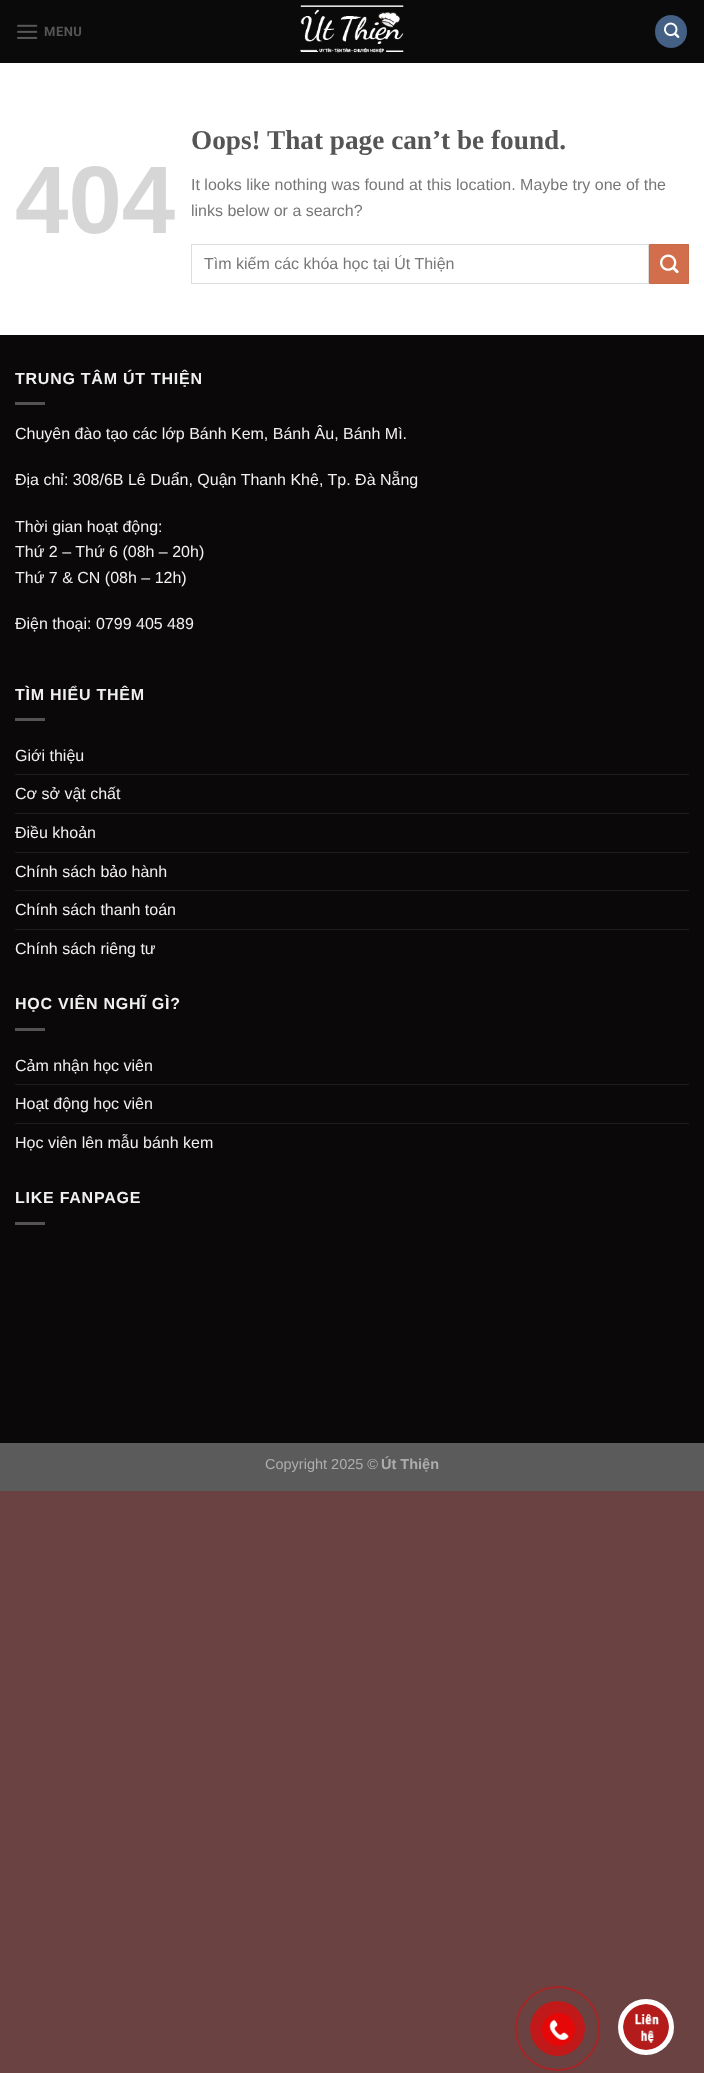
async function draw(canvas) {
  canvas.width = 704;
  canvas.height = 2073;
  const ctx = canvas.getContext('2d');
  ctx.miterLimit = 4;
  ctx.fontKerning = 'normal';
  function label(s, x, y, font, color) {
    ctx.font = font;
    ctx.fillStyle = color;
    ctx.fillText(s, x, y);
  }
  function rect(x, y, w, h, color) {
    ctx.fillStyle = color;
    ctx.fillRect(x, y, w, h);
  }
  function roundedRect(x, y, w, h, r, color) {
    ctx.fillStyle = color;
    ctx.beginPath();
    ctx.roundRect(x, y, w, h, r);
    ctx.fill();
  }
  async function image(src, x, y, w, h) {
    const img = new Image();
    img.src = src;
    await img.decode();
    ctx.drawImage(img, x, y, w, h);
  }

  rect(0, 0, 704, 2073, '#6a4242');
  rect(0, 63, 704, 272, '#fff');
  rect(0, 0, 704, 63, '#0a0a0a');
  await image('assets/img1.png', 17, 24, 21, 15);
  ctx.letterSpacing = '0.5px';
  label('MENU', 44, 36, 'bold 13px Roboto', '#555');
  await image('assets/img2.png', 300, 5, 104, 48);
  roundedRect(655, 15, 32, 33, 16, '#446084');
  ctx.strokeStyle = '#0000000d';
  ctx.strokeRect(655.5, 15.5, 31, 32);
  await image('assets/img3.png', 664, 22, 16, 16);
  ctx.letterSpacing = '0px';
  label('404', 15, 233, 'bold 96px Liberation Sans', '#d6d6d6');
  label('Oops! That page can’t be found.', 191, 149, 'bold 27.25px Liberation Serif', '#555');
  label('It looks like nothing was found at this location. Maybe try one of the', 191, 190, '16px Liberation Sans', '#777');
  label('links below or a search?', 191, 216, '16px Liberation Sans', '#777');
  ctx.strokeStyle = '#ddd';
  ctx.strokeRect(191.5, 244.5, 457, 39);
  label('Tìm kiếm các khóa học tại Út Thiện', 204, 269, '16px Liberation Sans', '#777');
  ctx.fillStyle = '#d26e4b';
  ctx.beginPath();
  ctx.rect(649.5, 244.5, 39, 39);
  ctx.fill();
  ctx.strokeStyle = '#c86947';
  ctx.stroke();
  await image('assets/img4.png', 660, 254, 19, 20);
  rect(0, 335, 704, 1108, '#0a0808');
  ctx.letterSpacing = '0.75px';
  label('TRUNG TÂM ÚT THIỆN', 15, 384, 'bold 16px Liberation Sans', '#f1f1f1');
  rect(15, 402, 30, 3, '#545252');
  ctx.letterSpacing = '0px';
  label('Chuyên đào tạo các lớp Bánh Kem, Bánh Âu, Bánh Mì.', 15, 439, '16px Liberation Sans', '#f1f1f1');
  label('Địa chỉ: 308/6B Lê Duẩn, Quận Thanh Khê, Tp. Đà Nẵng', 15, 485, '16px Liberation Sans', '#f1f1f1');
  label('Thời gian hoạt động:', 15, 532, '16px Liberation Sans', '#f1f1f1');
  label('Thứ 2 – Thứ 6 (08h – 20h)', 15, 557, '16px Liberation Sans', '#f1f1f1');
  label('Thứ 7 & CN (08h – 12h)', 15, 583, '16px Liberation Sans', '#f1f1f1');
  label('Điện thoại: 0799 405 489', 15, 629, '16px Liberation Sans', '#f1f1f1');
  ctx.letterSpacing = '0.75px';
  label('TÌM HIỂU THÊM', 15, 700, 'bold 16px Liberation Sans', '#f1f1f1');
  rect(15, 718, 30, 3, '#545252');
  ctx.letterSpacing = '0px';
  label('Giới thiệu', 15, 761, '16px Liberation Sans', '#f1f1f1');
  rect(15, 774, 674, 1, '#1e1c1c');
  label('Cơ sở vật chất', 15, 799, '16px Liberation Sans', '#f1f1f1');
  rect(15, 813, 674, 1, '#1e1c1c');
  label('Điều khoản', 15, 838, '16px Liberation Sans', '#f1f1f1');
  rect(15, 852, 674, 1, '#1e1c1c');
  label('Chính sách bảo hành', 15, 877, '16px Liberation Sans', '#f1f1f1');
  rect(15, 890, 674, 1, '#1e1c1c');
  label('Chính sách thanh toán', 15, 915, '16px Liberation Sans', '#f1f1f1');
  rect(15, 929, 674, 1, '#1e1c1c');
  label('Chính sách riêng tư', 15, 954, '16px Liberation Sans', '#f1f1f1');
  ctx.letterSpacing = '0.75px';
  label('HỌC VIÊN NGHĨ GÌ?', 15, 1009, 'bold 16px Liberation Sans', '#f1f1f1');
  rect(15, 1028, 30, 3, '#545252');
  ctx.letterSpacing = '0px';
  label('Cảm nhận học viên', 15, 1071, '16px Liberation Sans', '#f1f1f1');
  rect(15, 1084, 674, 1, '#1e1c1c');
  label('Hoạt động học viên', 15, 1109, '16px Liberation Sans', '#f1f1f1');
  rect(15, 1123, 674, 1, '#1e1c1c');
  label('Học viên lên mẫu bánh kem', 15, 1148, '16px Liberation Sans', '#f1f1f1');
  ctx.letterSpacing = '0.75px';
  label('LIKE FANPAGE', 15, 1203, 'bold 16px Liberation Sans', '#f1f1f1');
  rect(15, 1222, 30, 3, '#545252');
  rect(0, 1443, 704, 48, '#5b5b5b');
  ctx.letterSpacing = '0px';
  label('Copyright 2025 ©', 265, 1469, '14.5px Liberation Sans', '#adadad');
  label('Út Thiện', 381, 1469, 'bold 14.5px Liberation Sans', '#adadad');
  ctx.beginPath();
  ctx.arc(557.5, 2028.5, 41.5, 0, 2 * Math.PI);
  ctx.strokeStyle = '#a82525';
  ctx.lineWidth = 2;
  ctx.stroke();
  ctx.fillStyle = '#c11919';
  ctx.beginPath();
  ctx.arc(557.5, 2028.5, 27.5, 0, 2 * Math.PI);
  ctx.fill();
  ctx.fillStyle = '#e60808';
  ctx.beginPath();
  ctx.arc(558.5, 2029.5, 16.5, 0, 2 * Math.PI);
  ctx.fill();
  await image('assets/img5.png', 549, 2019, 20, 21);
  ctx.fillStyle = '#fff';
  ctx.beginPath();
  ctx.arc(646, 2027, 25.5, 0, 2 * Math.PI);
  ctx.fill();
  ctx.strokeStyle = '#fff';
  ctx.lineWidth = 5;
  ctx.stroke();
  await image('assets/img6.png', 623, 2004, 46, 46);
}

draw(document.querySelector('canvas'));
